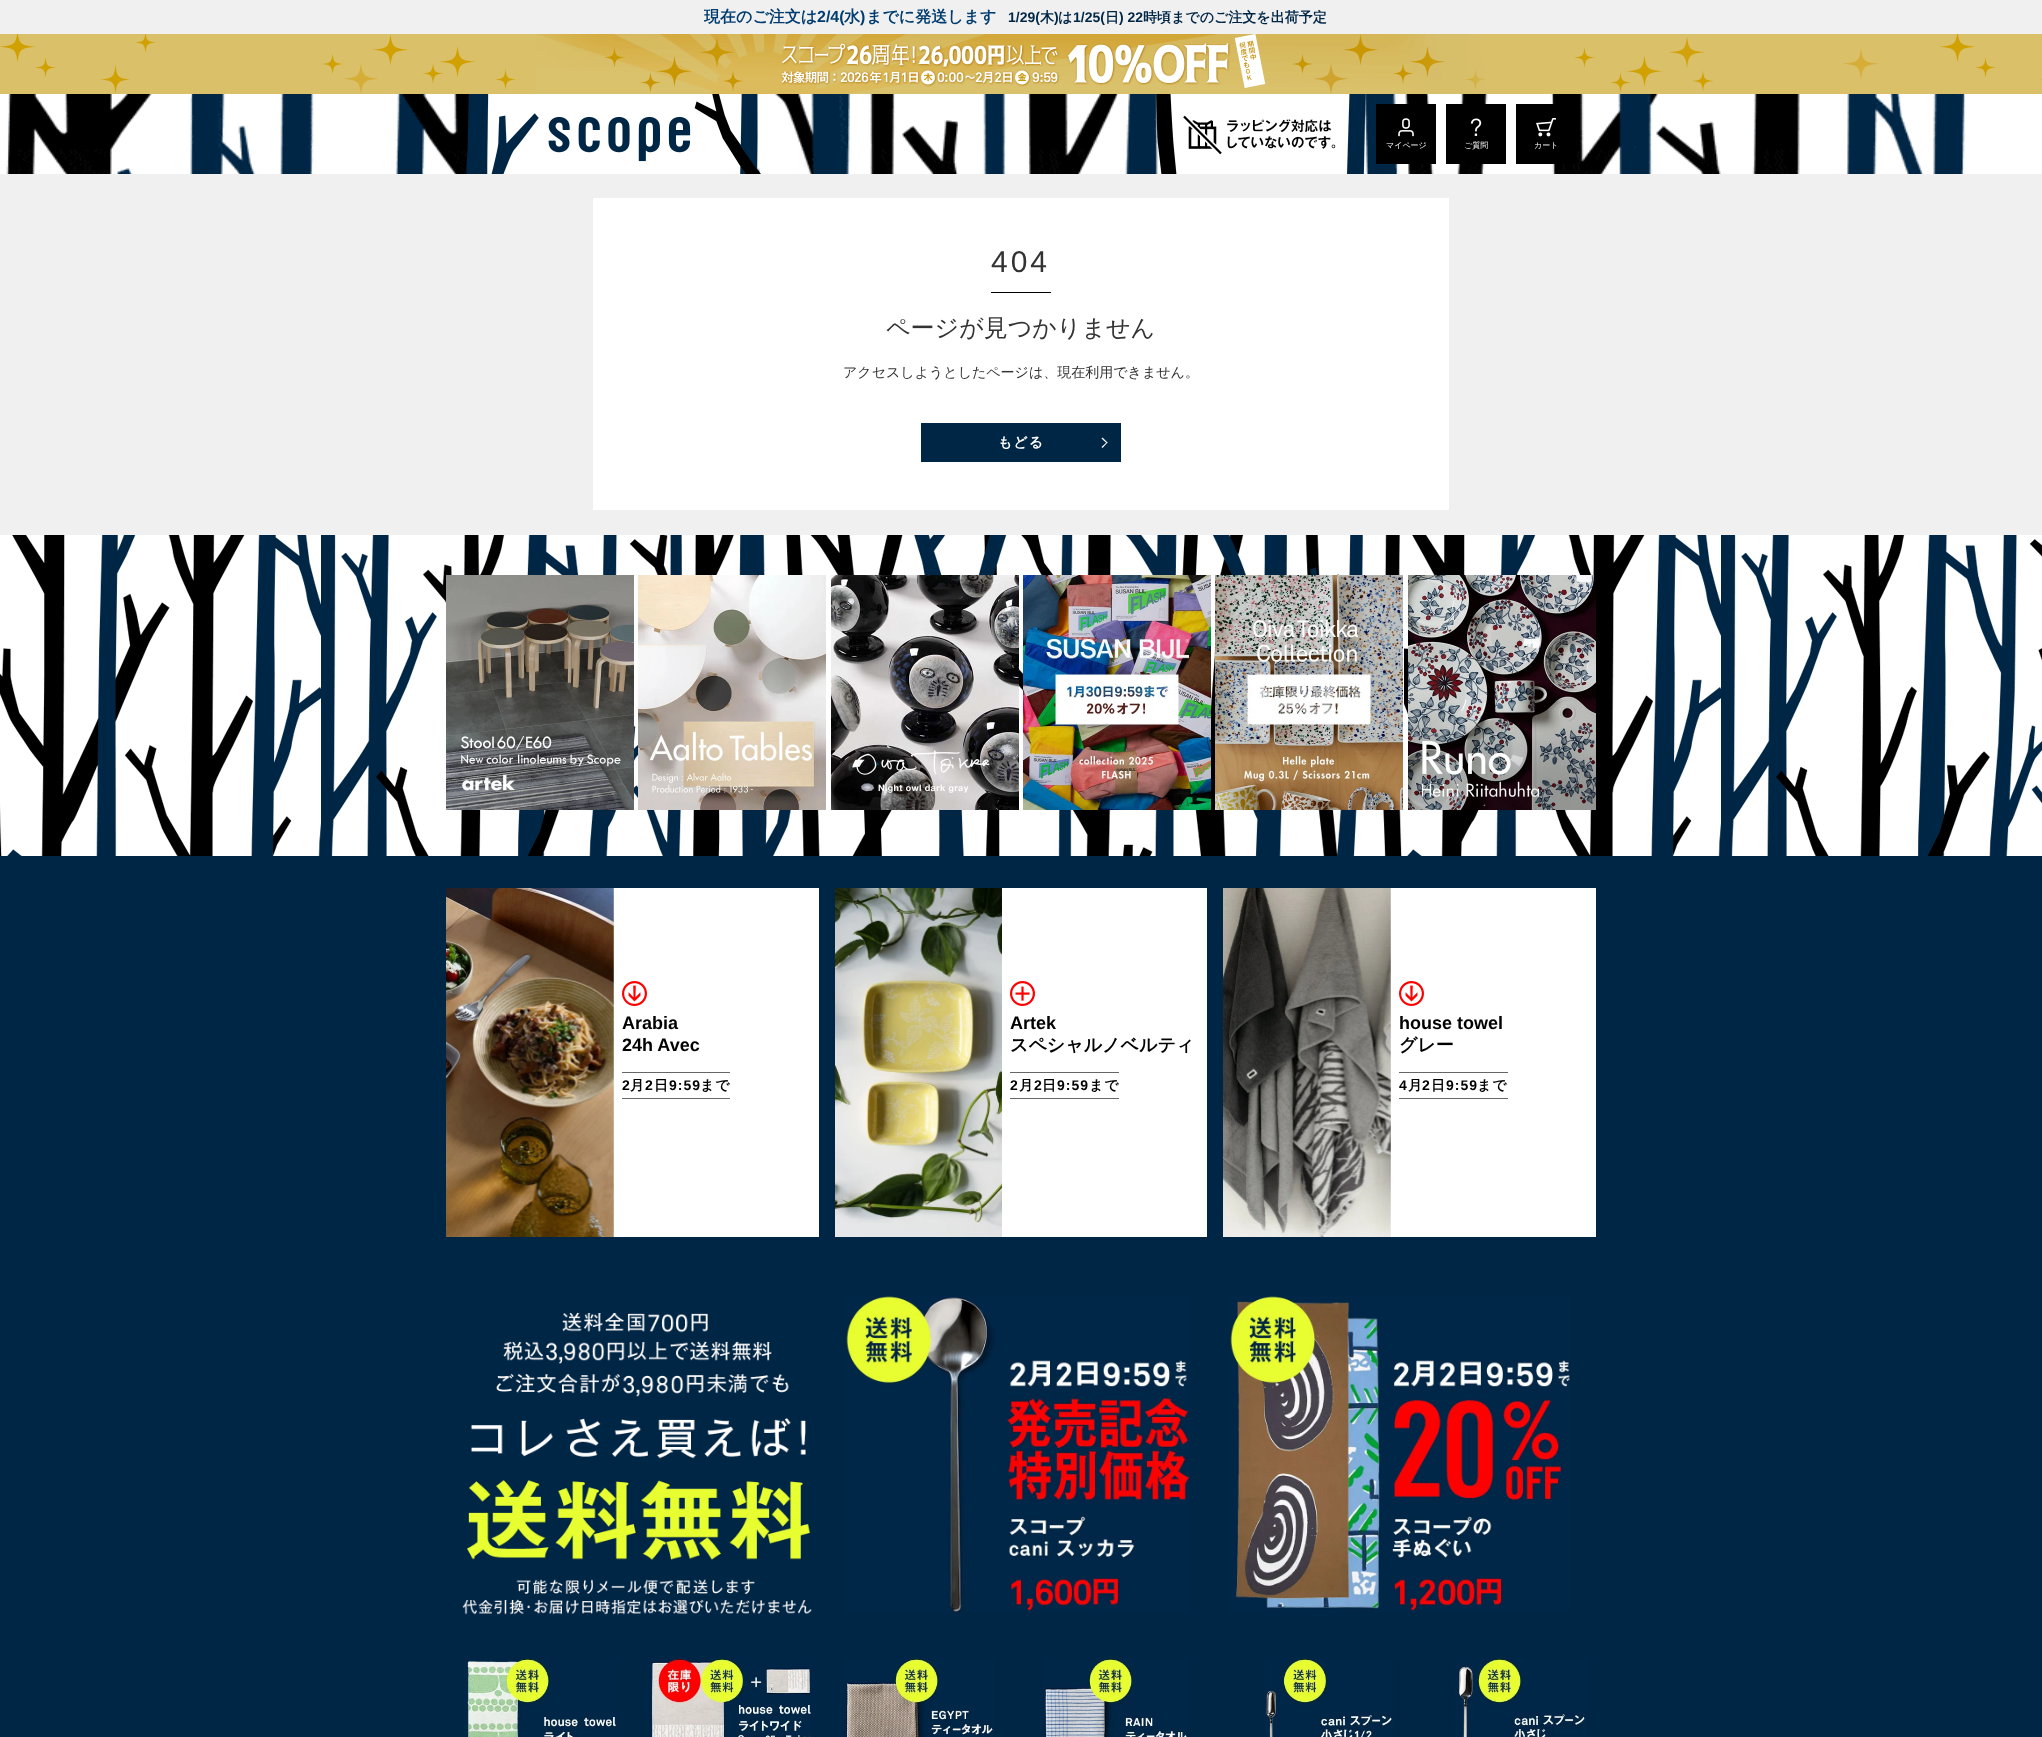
async function draw(canvas) {
  canvas.width = 2042;
  canvas.height = 1737;
  const ctx = canvas.getContext('2d');
  ctx.miterLimit = 4;
  ctx.fontKerning = 'normal';
  function label(s, x, y, font, color) {
    ctx.font = font;
    ctx.fillStyle = color;
    ctx.fillText(s, x, y);
  }
  function rect(x, y, w, h, color) {
    ctx.fillStyle = color;
    ctx.fillRect(x, y, w, h);
  }
  async function image(src, x, y, w, h) {
    const img = new Image();
    img.src = src;
    await img.decode();
    ctx.drawImage(img, x, y, w, h);
  }
  let path;

  rect(0, 0, 2042, 1737, '#f0f0f0');
  label('現在のご注文は', 704, 22, 'bold 16px WenQuanYi Zen Hei', '#003c6f');
  label('2/4(', 817, 22, 'bold 16px Liberation Sans', '#003c6f');
  label('水', 844, 22, 'bold 16px WenQuanYi Zen Hei', '#003c6f');
  label(')', 860, 22, 'bold 16px Liberation Sans', '#003c6f');
  label('までに発送します', 866, 22, 'bold 16px WenQuanYi Zen Hei', '#003c6f');
  label('1/29(', 1008, 22, 'bold 14px Liberation Sans', '#002646');
  label('木', 1040, 22, 'bold 14px WenQuanYi Zen Hei', '#002646');
  label(')', 1054, 22, 'bold 14px Liberation Sans', '#002646');
  label('は', 1058, 22, 'bold 14px WenQuanYi Zen Hei', '#002646');
  label('1/25(', 1073, 22, 'bold 14px Liberation Sans', '#002646');
  label('日', 1105, 22, 'bold 14px WenQuanYi Zen Hei', '#002646');
  label(') 22', 1119, 22, 'bold 14px Liberation Sans', '#002646');
  label('時頃までのご注文を出荷予定', 1143, 22, 'bold 14px WenQuanYi Zen Hei', '#002646');
  await image('assets/img1.png', 0, 34, 2042, 60);
  await image('assets/img2.png', 536, 34, 950, 60);
  await image('assets/img3.png', 0, 94, 2042, 80);
  await image('assets/img4.png', 466, 94, 295, 80);
  await image('assets/img5.png', 1156, 94, 210, 80);
  rect(1376, 104, 60, 60, '#000');
  await image('assets/img6.png', 1398, 118, 16, 19);
  label('マイページ', 1386, 148, '500 8px WenQuanYi Zen Hei', '#fff');
  rect(1446, 104, 60, 60, '#000');
  await image('assets/img7.png', 1470, 118, 12, 18);
  label('ご質問', 1464, 148, '500 8px WenQuanYi Zen Hei', '#fff');
  rect(1516, 104, 60, 60, '#000');
  await image('assets/img8.png', 1536, 118, 20, 19);
  label('カート', 1534, 148, '500 8px WenQuanYi Zen Hei', '#fff');
  rect(593, 198, 856, 312, '#fff');
  rect(991, 292, 60, 1, '#000');
  ctx.letterSpacing = '3px';
  label('404', 991, 272, '30px Liberation Sans', '#333');
  ctx.letterSpacing = '0px';
  label('ページが見つかりません', 886, 336, '500 24px WenQuanYi Zen Hei', '#333');
  label('アクセスしようとしたページは、現在利用できません。', 843, 377, '500 14px WenQuanYi Zen Hei', '#333');
  rect(921, 423, 200, 39, '#002646');
  ctx.letterSpacing = '1px';
  label('もどる', 998, 447, 'bold 14px WenQuanYi Zen Hei', '#fff');
  path = new Path2D('M1102.5 437.5L1107.5 442.5L1107 443.5L1101.5 438.5Z');
  ctx.fill(path);
  path = new Path2D('M1107 442L1107.5 442.5L1102.5 448L1101.5 447Z');
  ctx.fill(path);
  rect(0, 856, 2042, 881, '#002646');
  await image('assets/img9.png', 0, 535, 2042, 321);
  await image('assets/img10.png', 446, 575, 188, 235);
  rect(826, 748, 1, 2, '#fff');
  await image('assets/img11.png', 638, 575, 188, 235);
  await image('assets/img12.png', 831, 575, 188, 235);
  await image('assets/img13.png', 1023, 575, 188, 235);
  rect(1403, 648, 1, 57, '#fff');
  await image('assets/img14.png', 1215, 575, 188, 235);
  await image('assets/img15.png', 1408, 575, 188, 235);
  rect(613, 888, 206, 349, '#fff');
  await image('assets/img16.png', 446, 888, 168, 349);
  await image('assets/img17.png', 622, 981, 25, 25);
  ctx.letterSpacing = '0px';
  label('Arabia', 622, 1029, 'bold 18px Liberation Sans', '#000');
  label('24h Avec', 622, 1051, 'bold 18px Liberation Sans', '#000');
  rect(622, 1072, 108, 1, '#666');
  rect(622, 1098, 108, 1, '#666');
  ctx.letterSpacing = '1px';
  label('2', 622, 1090, 'bold 14px Liberation Sans', '#000');
  label('月', 630, 1090, 'bold 14px WenQuanYi Zen Hei', '#000');
  label('2', 645, 1090, 'bold 14px Liberation Sans', '#000');
  label('日', 654, 1090, 'bold 14px WenQuanYi Zen Hei', '#000');
  label('9:59', 669, 1090, 'bold 14px Liberation Sans', '#000');
  label('まで', 700, 1090, 'bold 14px WenQuanYi Zen Hei', '#000');
  rect(835, 888, 372, 349, '#fff');
  await image('assets/img18.png', 835, 888, 167, 349);
  await image('assets/img19.png', 1010, 981, 25, 25);
  ctx.letterSpacing = '0px';
  label('Artek', 1010, 1029, 'bold 18px Liberation Sans', '#000');
  label('スペシャルノベルティ', 1010, 1051, 'bold 18px WenQuanYi Zen Hei', '#000');
  rect(1010, 1072, 109, 1, '#666');
  rect(1010, 1098, 109, 1, '#666');
  ctx.letterSpacing = '1px';
  label('2', 1010, 1090, 'bold 14px Liberation Sans', '#000');
  label('月', 1019, 1090, 'bold 14px WenQuanYi Zen Hei', '#000');
  label('2', 1034, 1090, 'bold 14px Liberation Sans', '#000');
  label('日', 1042, 1090, 'bold 14px WenQuanYi Zen Hei', '#000');
  label('9:59', 1057, 1090, 'bold 14px Liberation Sans', '#000');
  label('まで', 1089, 1090, 'bold 14px WenQuanYi Zen Hei', '#000');
  rect(1390, 888, 206, 349, '#fff');
  await image('assets/img20.png', 1223, 888, 168, 349);
  await image('assets/img17.png', 1399, 981, 25, 25);
  ctx.letterSpacing = '0px';
  label('house towel', 1399, 1029, 'bold 18px Liberation Sans', '#000');
  label('グレー', 1399, 1051, 'bold 18px WenQuanYi Zen Hei', '#000');
  rect(1399, 1072, 109, 1, '#666');
  rect(1399, 1098, 109, 1, '#666');
  ctx.letterSpacing = '1px';
  label('4', 1399, 1090, 'bold 14px Liberation Sans', '#000');
  label('月', 1408, 1090, 'bold 14px WenQuanYi Zen Hei', '#000');
  label('2', 1422, 1090, 'bold 14px Liberation Sans', '#000');
  label('日', 1431, 1090, 'bold 14px WenQuanYi Zen Hei', '#000');
  label('9:59', 1446, 1090, 'bold 14px Liberation Sans', '#000');
  label('まで', 1477, 1090, 'bold 14px WenQuanYi Zen Hei', '#000');
  await image('assets/img21.png', 466, 1312, 345, 248);
  await image('assets/img22.png', 462, 1579, 350, 36);
  await image('assets/img23.png', 845, 1296, 345, 317);
  await image('assets/img24.png', 1229, 1296, 341, 316);
  await image('assets/img25.png', 464, 1658, 155, 79);
  await image('assets/img26.png', 650, 1658, 164, 79);
  await image('assets/img27.png', 844, 1658, 150, 79);
  await image('assets/img28.png', 1043, 1658, 145, 79);
  await image('assets/img29.png', 1265, 1658, 128, 79);
  await image('assets/img30.png', 1455, 1658, 132, 79);
}

draw(document.querySelector('canvas'));
